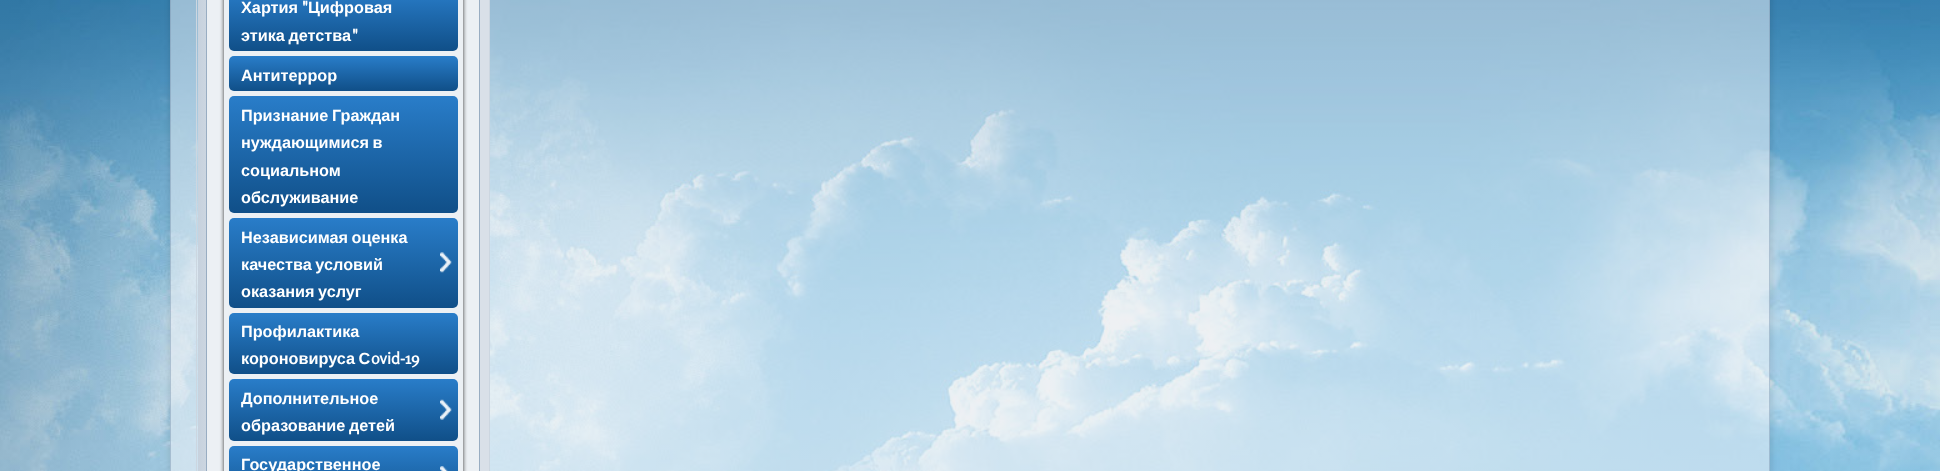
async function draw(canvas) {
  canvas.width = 1940;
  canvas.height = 471;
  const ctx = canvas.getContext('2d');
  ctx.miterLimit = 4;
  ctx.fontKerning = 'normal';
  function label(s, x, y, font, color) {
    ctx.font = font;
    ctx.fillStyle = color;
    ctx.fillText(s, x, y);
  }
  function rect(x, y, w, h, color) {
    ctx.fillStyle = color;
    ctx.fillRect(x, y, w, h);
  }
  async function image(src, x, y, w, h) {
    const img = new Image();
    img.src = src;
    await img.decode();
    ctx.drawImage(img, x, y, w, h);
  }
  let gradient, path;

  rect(0, 0, 1940, 471, '#fff');
  await image('assets/img1.png', 0, 0, 1940, 471);
  ctx.save();
  path = new Path2D('M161 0H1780V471H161ZM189-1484H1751C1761.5-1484 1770-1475.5 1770-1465V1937C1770 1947.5 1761.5 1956 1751 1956H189C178.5 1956 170 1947.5 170 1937V-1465C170-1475.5 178.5-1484 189-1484Z');
  ctx.clip(path, 'evenodd');
  ctx.fillStyle = '#00000012';
  ctx.filter = 'blur(2px)';
  ctx.beginPath();
  ctx.roundRect(168, -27, 1605, 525, 21);
  ctx.fill();
  ctx.filter = 'none';
  ctx.restore();
  rect(170, 0, 1600, 471, '#f9fafb80');
  ctx.strokeStyle = '#8099b380';
  ctx.strokeRect(170.5, -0.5, 1599, 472);
  gradient = ctx.createLinearGradient(197, -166, 489, -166);
  gradient.addColorStop(0, '#c6d1dd');
  gradient.addColorStop(0.1, '#d9e0e8');
  ctx.fillStyle = gradient;
  ctx.fillRect(198, 0, 291, 471);
  ctx.strokeStyle = '#ccd6e0';
  ctx.strokeRect(196.5, -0.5, 293, 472);
  ctx.fillStyle = '#ecf0f4';
  ctx.beginPath();
  ctx.rect(206.5, -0.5, 273, 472);
  ctx.fill();
  ctx.strokeStyle = '#99adc2';
  ctx.stroke();
  ctx.save();
  path = new Path2D('M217 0H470V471H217ZM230-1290H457C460.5-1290 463-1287.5 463-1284V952C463 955.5 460.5 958 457 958H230C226.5 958 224 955.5 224 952V-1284C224-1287.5 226.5-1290 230-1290Z');
  ctx.clip(path, 'evenodd');
  ctx.fillStyle = '#333';
  ctx.filter = 'blur(2px)';
  ctx.beginPath();
  ctx.roundRect(224, -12, 239, 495, 6);
  ctx.fill();
  ctx.filter = 'none';
  ctx.restore();
  gradient = ctx.createLinearGradient(229, 51, 229, -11);
  gradient.addColorStop(0, '#104f88');
  gradient.addColorStop(1, '#297dc9');
  ctx.fillStyle = gradient;
  ctx.beginPath();
  ctx.roundRect(229, -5, 229, 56, 5);
  ctx.fill();
  label('Хартия', 241, 13, 'bold 16.25px Liberation Sans', '#fff');
  label('"', 302, 13, 'bold 16.25px Rosario', '#fff');
  label('Цифровая', 308, 13, 'bold 16.25px Liberation Sans', '#fff');
  label('"', 352, 41, 'bold 16.25px Rosario', '#fff');
  ctx.wordSpacing = '-1px';
  label('этика детства', 241, 41, 'bold 16.25px Liberation Sans', '#fff');
  gradient = ctx.createLinearGradient(229, 91, 229, 56);
  gradient.addColorStop(0, '#104f88');
  gradient.addColorStop(1, '#297dc9');
  ctx.fillStyle = gradient;
  ctx.beginPath();
  ctx.roundRect(229, 56, 229, 35, 5);
  ctx.fill();
  ctx.wordSpacing = '0px';
  label('Антитеррор', 241, 81, 'bold 16.25px Liberation Sans', '#fff');
  gradient = ctx.createLinearGradient(229, 213, 229, 96);
  gradient.addColorStop(0, '#104f88');
  gradient.addColorStop(1, '#297dc9');
  ctx.fillStyle = gradient;
  ctx.beginPath();
  ctx.roundRect(229, 96, 229, 117, 5);
  ctx.fill();
  ctx.wordSpacing = '-1px';
  label('Признание Граждан', 241, 121, 'bold 16.25px Liberation Sans', '#fff');
  label('нуждающимися в', 241, 148, 'bold 16.25px Liberation Sans', '#fff');
  ctx.wordSpacing = '0px';
  label('социальном', 241, 176, 'bold 16.25px Liberation Sans', '#fff');
  label('обслуживание', 241, 203, 'bold 16.25px Liberation Sans', '#fff');
  gradient = ctx.createLinearGradient(229, 308, 229, 218);
  gradient.addColorStop(0, '#104f88');
  gradient.addColorStop(1, '#297dc9');
  ctx.fillStyle = gradient;
  ctx.beginPath();
  ctx.roundRect(229, 218, 229, 90, 5);
  ctx.fill();
  await image('assets/img2.png', 440, 252, 12, 21);
  ctx.wordSpacing = '-1px';
  label('Независимая оценка', 241, 243, 'bold 16.25px Liberation Sans', '#fff');
  label('качества условий', 241, 270, 'bold 16.25px Liberation Sans', '#fff');
  label('оказания услуг', 241, 297, 'bold 16.25px Liberation Sans', '#fff');
  gradient = ctx.createLinearGradient(229, 374, 229, 313);
  gradient.addColorStop(0, '#104f88');
  gradient.addColorStop(1, '#297dc9');
  ctx.fillStyle = gradient;
  ctx.beginPath();
  ctx.roundRect(229, 313, 229, 61, 5);
  ctx.fill();
  ctx.wordSpacing = '0px';
  label('Профилактика', 241, 337, 'bold 16.25px Liberation Sans', '#fff');
  ctx.wordSpacing = '-1px';
  label('короновируса С', 241, 364, 'bold 16.25px Liberation Sans', '#fff');
  ctx.wordSpacing = '0px';
  label('ovid-19', 371, 364, 'bold 16.25px Rosario', '#fff');
  gradient = ctx.createLinearGradient(229, 441, 229, 379);
  gradient.addColorStop(0, '#104f88');
  gradient.addColorStop(1, '#297dc9');
  ctx.fillStyle = gradient;
  ctx.beginPath();
  ctx.roundRect(229, 379, 229, 62, 5);
  ctx.fill();
  await image('assets/img3.png', 440, 399, 12, 21);
  label('Дополнительное', 241, 404, 'bold 16.25px Liberation Sans', '#fff');
  ctx.wordSpacing = '-1px';
  label('образование детей', 241, 431, 'bold 16.25px Liberation Sans', '#fff');
  gradient = ctx.createLinearGradient(229, 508, 229, 446);
  gradient.addColorStop(0, '#104f88');
  gradient.addColorStop(1, '#297dc9');
  ctx.fillStyle = gradient;
  ctx.beginPath();
  ctx.roundRect(229, 446, 229, 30, 5);
  ctx.fill();
  await image('assets/img4.png', 440, 466, 8, 5);
  ctx.wordSpacing = '0px';
  label('Государственное', 241, 470, 'bold 16.25px Liberation Sans', '#fff');
}

draw(document.querySelector('canvas'));
